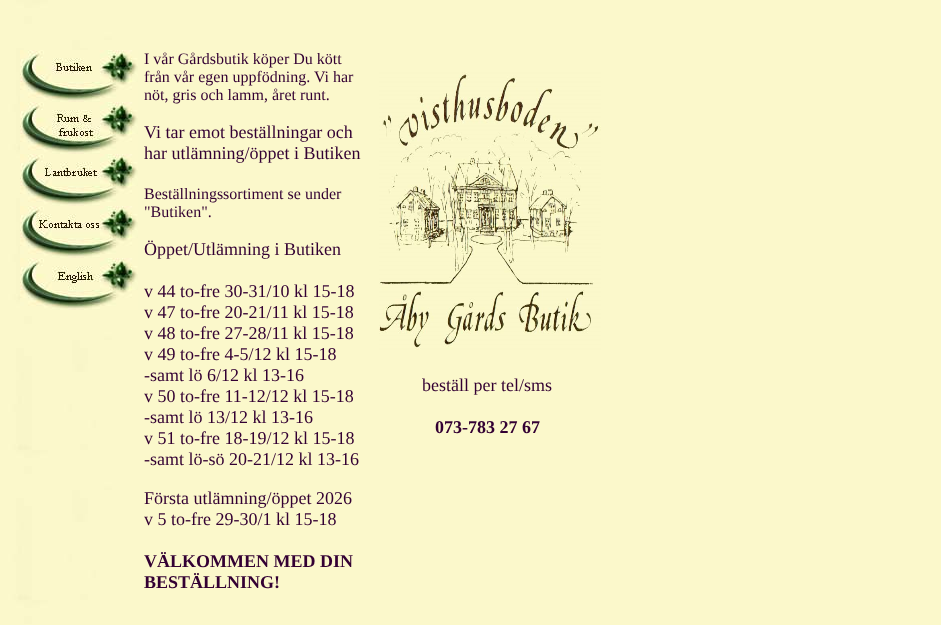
async function draw(canvas) {
  canvas.width = 941;
  canvas.height = 625;
  const ctx = canvas.getContext('2d');
  ctx.miterLimit = 4;
  ctx.fontKerning = 'normal';
  function label(s, x, y, font, color) {
    ctx.font = font;
    ctx.fillStyle = color;
    ctx.fillText(s, x, y);
  }
  function rect(x, y, w, h, color) {
    ctx.fillStyle = color;
    ctx.fillRect(x, y, w, h);
  }
  async function image(src, x, y, w, h) {
    const img = new Image();
    img.src = src;
    await img.decode();
    ctx.drawImage(img, x, y, w, h);
  }

  rect(0, 0, 941, 625, '#fff');
  await image('assets/img1.png', 0, 0, 941, 625);
  await image('assets/img2.png', 20, 50, 118, 52);
  await image('assets/img3.png', 20, 102, 118, 52);
  await image('assets/img4.png', 20, 154, 118, 52);
  await image('assets/img5.png', 20, 206, 118, 52);
  await image('assets/img6.png', 20, 258, 118, 52);
  label('I vår Gårdsbutik köper Du kött', 144, 64, '16px Liberation Serif', '#303');
  label('från vår egen uppfödning. Vi har', 144, 82, '16px Liberation Serif', '#303');
  label('nöt, gris och lamm, året runt.', 144, 100, '16px Liberation Serif', '#303');
  label('Vi tar emot beställningar och', 144, 138, '18px Liberation Serif', '#303');
  label('har utlämning/öppet i Butiken', 144, 159, '18px Liberation Serif', '#303');
  label('Beställningssortiment se under', 144, 199, '16px Liberation Serif', '#303');
  label('"Butiken".', 144, 217, '16px Liberation Serif', '#303');
  label('Öppet/Utlämning i Butiken', 144, 255, '18px Liberation Serif', '#303');
  label('v 44 to-fre 30-31/10 kl 15-18', 144, 297, '18px Liberation Serif', '#303');
  label('v 47 to-fre 20-21/11 kl 15-18', 144, 318, '18px Liberation Serif', '#303');
  label('v 48 to-fre 27-28/11 kl 15-18', 144, 339, '18px Liberation Serif', '#303');
  label('v 49 to-fre 4-5/12 kl 15-18', 144, 360, '18px Liberation Serif', '#303');
  label('-samt lö 6/12 kl 13-16', 144, 381, '18px Liberation Serif', '#303');
  label('v 50 to-fre 11-12/12 kl 15-18', 144, 402, '18px Liberation Serif', '#303');
  label('-samt lö 13/12 kl 13-16', 144, 423, '18px Liberation Serif', '#303');
  label('v 51 to-fre 18-19/12 kl 15-18', 144, 444, '18px Liberation Serif', '#303');
  label('-samt lö-sö 20-21/12 kl 13-16', 144, 465, '18px Liberation Serif', '#303');
  label('Första utlämning/öppet 2026', 144, 504, '18px Liberation Serif', '#303');
  label('v 5 to-fre 29-30/1 kl 15-18', 144, 525, '18px Liberation Serif', '#303');
  label('VÄLKOMMEN MED DIN', 144, 567, 'bold 18px Liberation Serif', '#303');
  label('BESTÄLLNING!', 144, 588, 'bold 18px Liberation Serif', '#303');
  await image('assets/img7.png', 379, 72, 222, 278);
  label('beställ per tel/sms', 422, 391, '18px Liberation Serif', '#303');
  label('073-783 27 67', 435, 433, 'bold 18px Liberation Serif', '#303');
}

draw(document.querySelector('canvas'));
